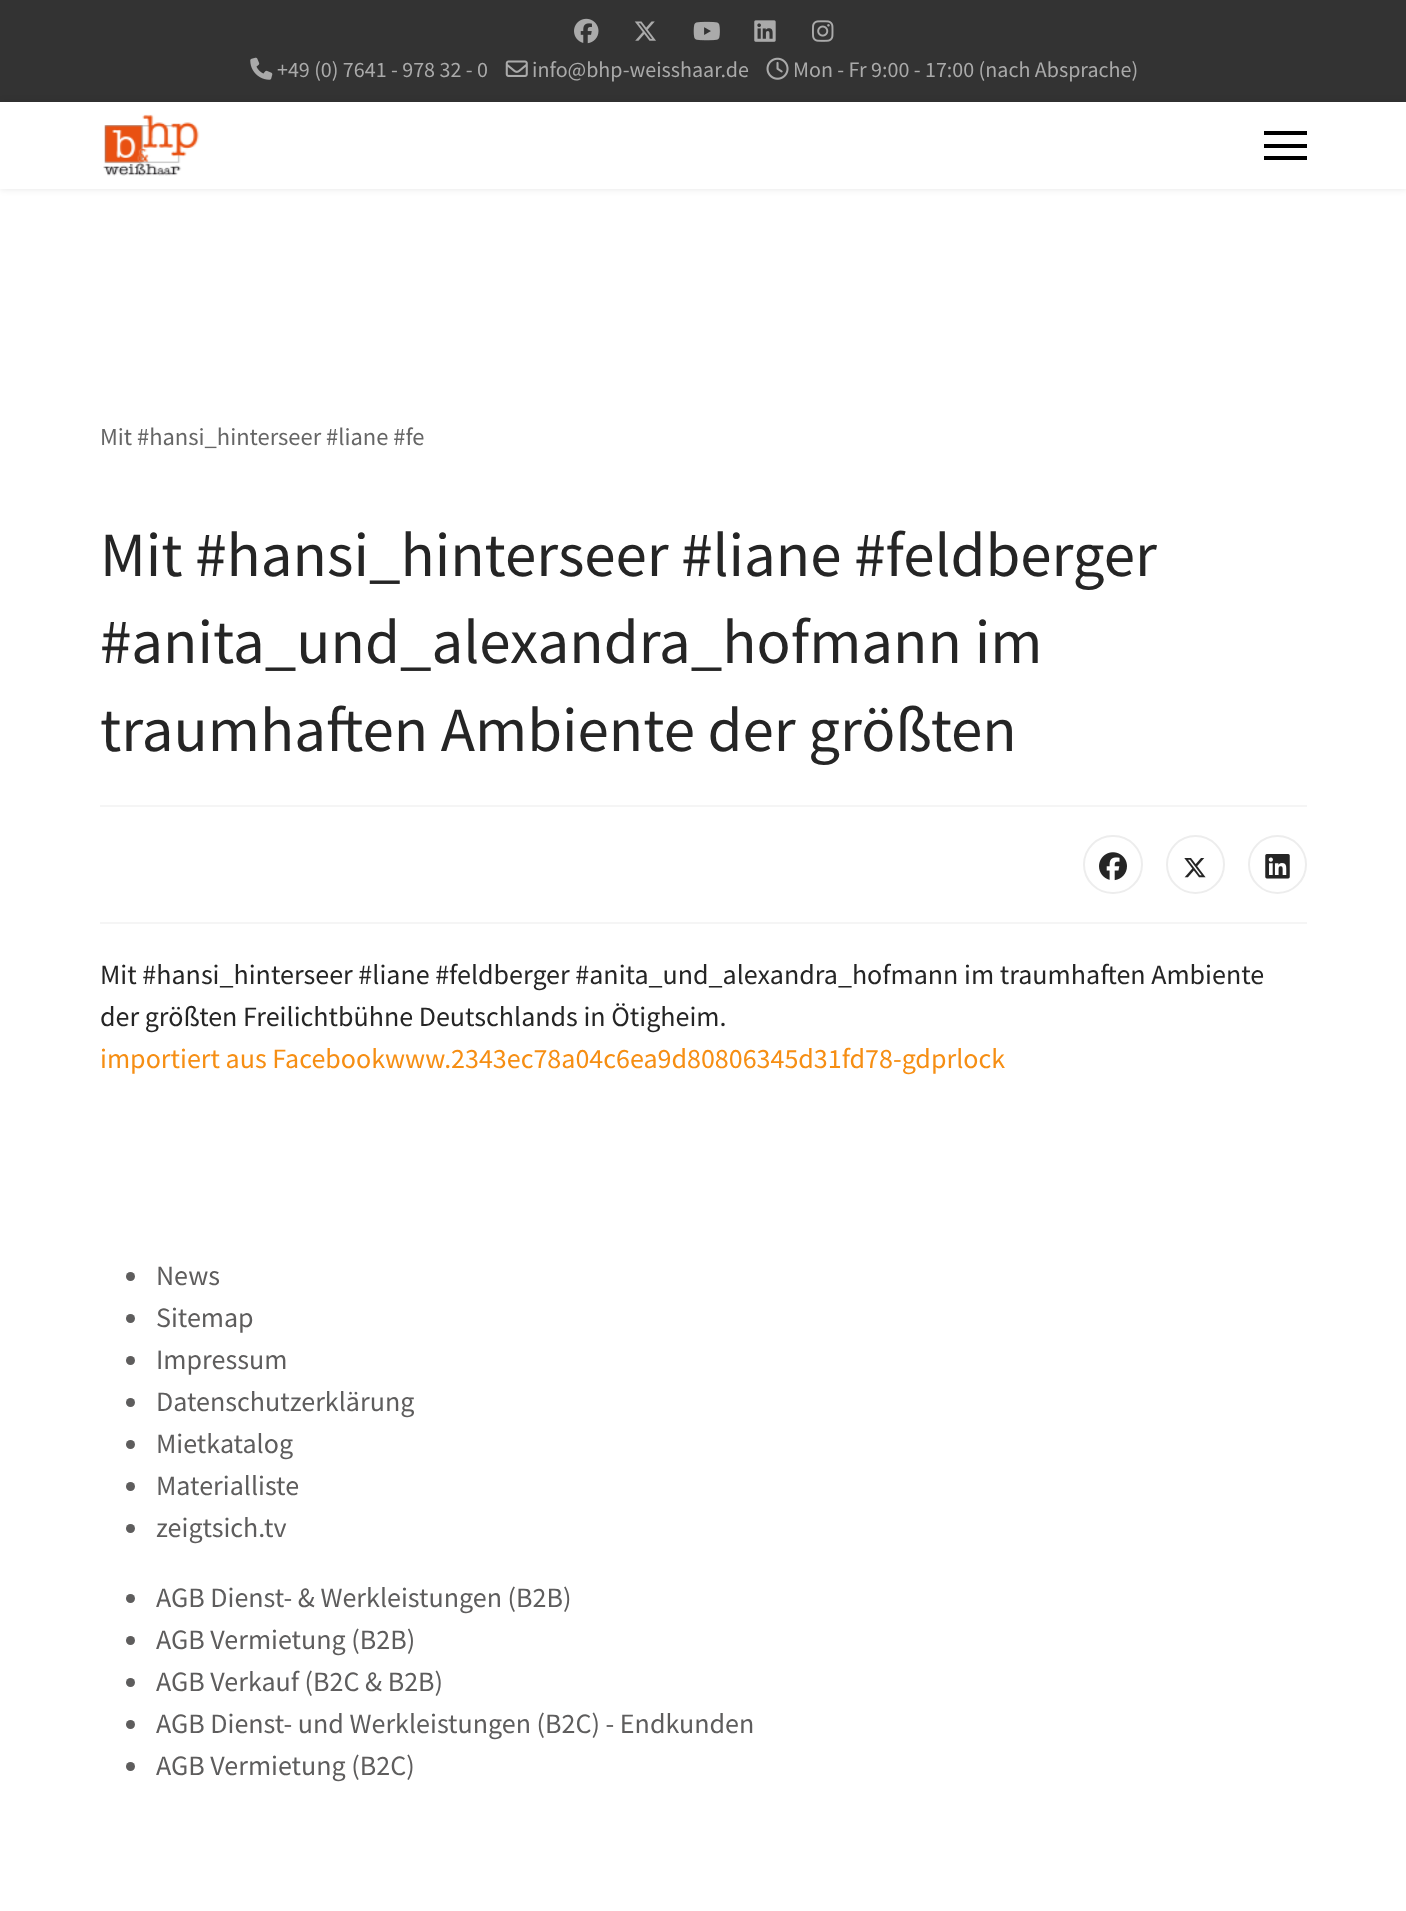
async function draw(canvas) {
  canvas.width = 1406;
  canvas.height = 1911;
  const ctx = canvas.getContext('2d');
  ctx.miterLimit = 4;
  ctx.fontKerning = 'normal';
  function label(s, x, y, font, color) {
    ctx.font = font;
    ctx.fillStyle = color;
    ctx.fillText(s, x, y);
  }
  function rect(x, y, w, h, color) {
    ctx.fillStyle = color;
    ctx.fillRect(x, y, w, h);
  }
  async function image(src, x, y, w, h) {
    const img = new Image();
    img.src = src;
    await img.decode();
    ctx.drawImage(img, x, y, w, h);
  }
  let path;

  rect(0, 0, 1406, 1911, '#fff');
  rect(0, 0, 1406, 102, '#333');
  await image('assets/img1.png', 574, 18, 25, 26);
  await image('assets/img2.png', 634, 21, 22, 20);
  await image('assets/img3.png', 693, 21, 27, 20);
  await image('assets/img4.png', 754, 20, 22, 22);
  await image('assets/img5.png', 812, 20, 22, 22);
  await image('assets/img6.png', 250, 57, 23, 23);
  label('+49 (0) 7641 - 978 32 - 0', 277, 77, '22px Source Sans Pro', '#aaa');
  await image('assets/img7.png', 505, 60, 23, 17);
  label('info@bhp-weisshaar.de', 532, 77, '22px Source Sans Pro', '#aaa');
  await image('assets/img8.png', 766, 57, 23, 23);
  label('Mon - Fr 9:00 - 17:00 (nach Absprache)', 793, 77, '22px Source Sans Pro', '#aaa');
  ctx.save();
  path = new Path2D('M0 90H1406V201H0ZM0 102H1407V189H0Z');
  ctx.clip(path, 'evenodd');
  ctx.fillStyle = '#0000001a';
  ctx.filter = 'blur(3.5px)';
  ctx.beginPath();
  ctx.rect(0, 102, 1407, 87);
  ctx.fill();
  ctx.filter = 'none';
  ctx.restore();
  await image('assets/img9.png', 103, 114, 97, 62);
  rect(1264, 131, 43, 4, '#000');
  rect(1264, 144, 43, 4, '#000');
  rect(1264, 156, 43, 4, '#000');
  label('Mit #hansi_hinterseer #liane #fe', 100, 445, '24.5px Source Sans Pro', '#666');
  label('Mit #hansi_hinterseer #liane #feldberger', 100, 576, '63px Source Sans Pro', '#252525');
  label('#anita_und_alexandra_hofmann im', 100, 663, '63px Source Sans Pro', '#252525');
  label('traumhaften Ambiente der größten', 100, 751, '63px Source Sans Pro', '#252525');
  rect(100, 805, 1207, 2, '#f5f5f5');
  rect(100, 922, 1207, 2, '#f5f5f5');
  ctx.beginPath();
  ctx.roundRect(1084, 836, 58, 57, 28.5);
  ctx.strokeStyle = '#ededed';
  ctx.lineWidth = 2;
  ctx.stroke();
  await image('assets/img10.png', 1099, 852, 28, 29);
  ctx.beginPath();
  ctx.arc(1195.5, 864.5, 28.5, 0, 2 * Math.PI);
  ctx.stroke();
  await image('assets/img11.png', 1184, 858, 22, 20);
  ctx.beginPath();
  ctx.arc(1277.5, 864.5, 28.5, 0, 2 * Math.PI);
  ctx.stroke();
  await image('assets/img12.png', 1265, 854, 25, 25);
  label('Mit #hansi_hinterseer #liane #feldberger #anita_und_alexandra_hofmann im traumhaften Ambiente', 100, 984, '28px Source Sans Pro', '#252525');
  label('der größten Freilichtbühne Deutschlands in Ötigheim.', 100, 1026, '28px Source Sans Pro', '#252525');
  label('importiert aus Facebookwww.2343ec78a04c6ea9d80806345d31fd78-gdprlock', 100, 1068, '28px Source Sans Pro', '#f68e13');
  ctx.fillStyle = '#5e5d5d';
  ctx.beginPath();
  ctx.arc(130.5, 1276.5, 4.5, 0, 2 * Math.PI);
  ctx.fill();
  label('News', 156, 1285, '28px Source Sans Pro', '#5e5d5d');
  ctx.beginPath();
  ctx.arc(130.5, 1318.5, 4.5, 0, 2 * Math.PI);
  ctx.fill();
  label('Sitemap', 156, 1327, '28px Source Sans Pro', '#5e5d5d');
  ctx.beginPath();
  ctx.arc(130.5, 1360.5, 4.5, 0, 2 * Math.PI);
  ctx.fill();
  label('Impressum', 156, 1369, '28px Source Sans Pro', '#5e5d5d');
  ctx.beginPath();
  ctx.arc(130.5, 1402.5, 4.5, 0, 2 * Math.PI);
  ctx.fill();
  label('Datenschutzerklärung', 156, 1411, '28px Source Sans Pro', '#5e5d5d');
  ctx.beginPath();
  ctx.arc(130.5, 1444.5, 4.5, 0, 2 * Math.PI);
  ctx.fill();
  label('Mietkatalog', 156, 1453, '28px Source Sans Pro', '#5e5d5d');
  ctx.beginPath();
  ctx.arc(130.5, 1486.5, 4.5, 0, 2 * Math.PI);
  ctx.fill();
  label('Materialliste', 156, 1495, '28px Source Sans Pro', '#5e5d5d');
  ctx.beginPath();
  ctx.arc(130.5, 1528.5, 4.5, 0, 2 * Math.PI);
  ctx.fill();
  label('zeigtsich.tv', 156, 1537, '28px Source Sans Pro', '#5e5d5d');
  ctx.beginPath();
  ctx.arc(130.5, 1598.5, 4.5, 0, 2 * Math.PI);
  ctx.fill();
  label('AGB Dienst- & Werkleistungen (B2B)', 156, 1607, '28px Source Sans Pro', '#5e5d5d');
  ctx.beginPath();
  ctx.arc(130.5, 1640.5, 4.5, 0, 2 * Math.PI);
  ctx.fill();
  label('AGB Vermietung (B2B)', 156, 1649, '28px Source Sans Pro', '#5e5d5d');
  ctx.beginPath();
  ctx.arc(130.5, 1682.5, 4.5, 0, 2 * Math.PI);
  ctx.fill();
  label('AGB Verkauf (B2C & B2B)', 156, 1691, '28px Source Sans Pro', '#5e5d5d');
  ctx.beginPath();
  ctx.arc(130.5, 1724.5, 4.5, 0, 2 * Math.PI);
  ctx.fill();
  label('AGB Dienst- und Werkleistungen (B2C) - Endkunden', 156, 1733, '28px Source Sans Pro', '#5e5d5d');
  ctx.beginPath();
  ctx.arc(130.5, 1766.5, 4.5, 0, 2 * Math.PI);
  ctx.fill();
  label('AGB Vermietung (B2C)', 156, 1775, '28px Source Sans Pro', '#5e5d5d');
}

draw(document.querySelector('canvas'));
